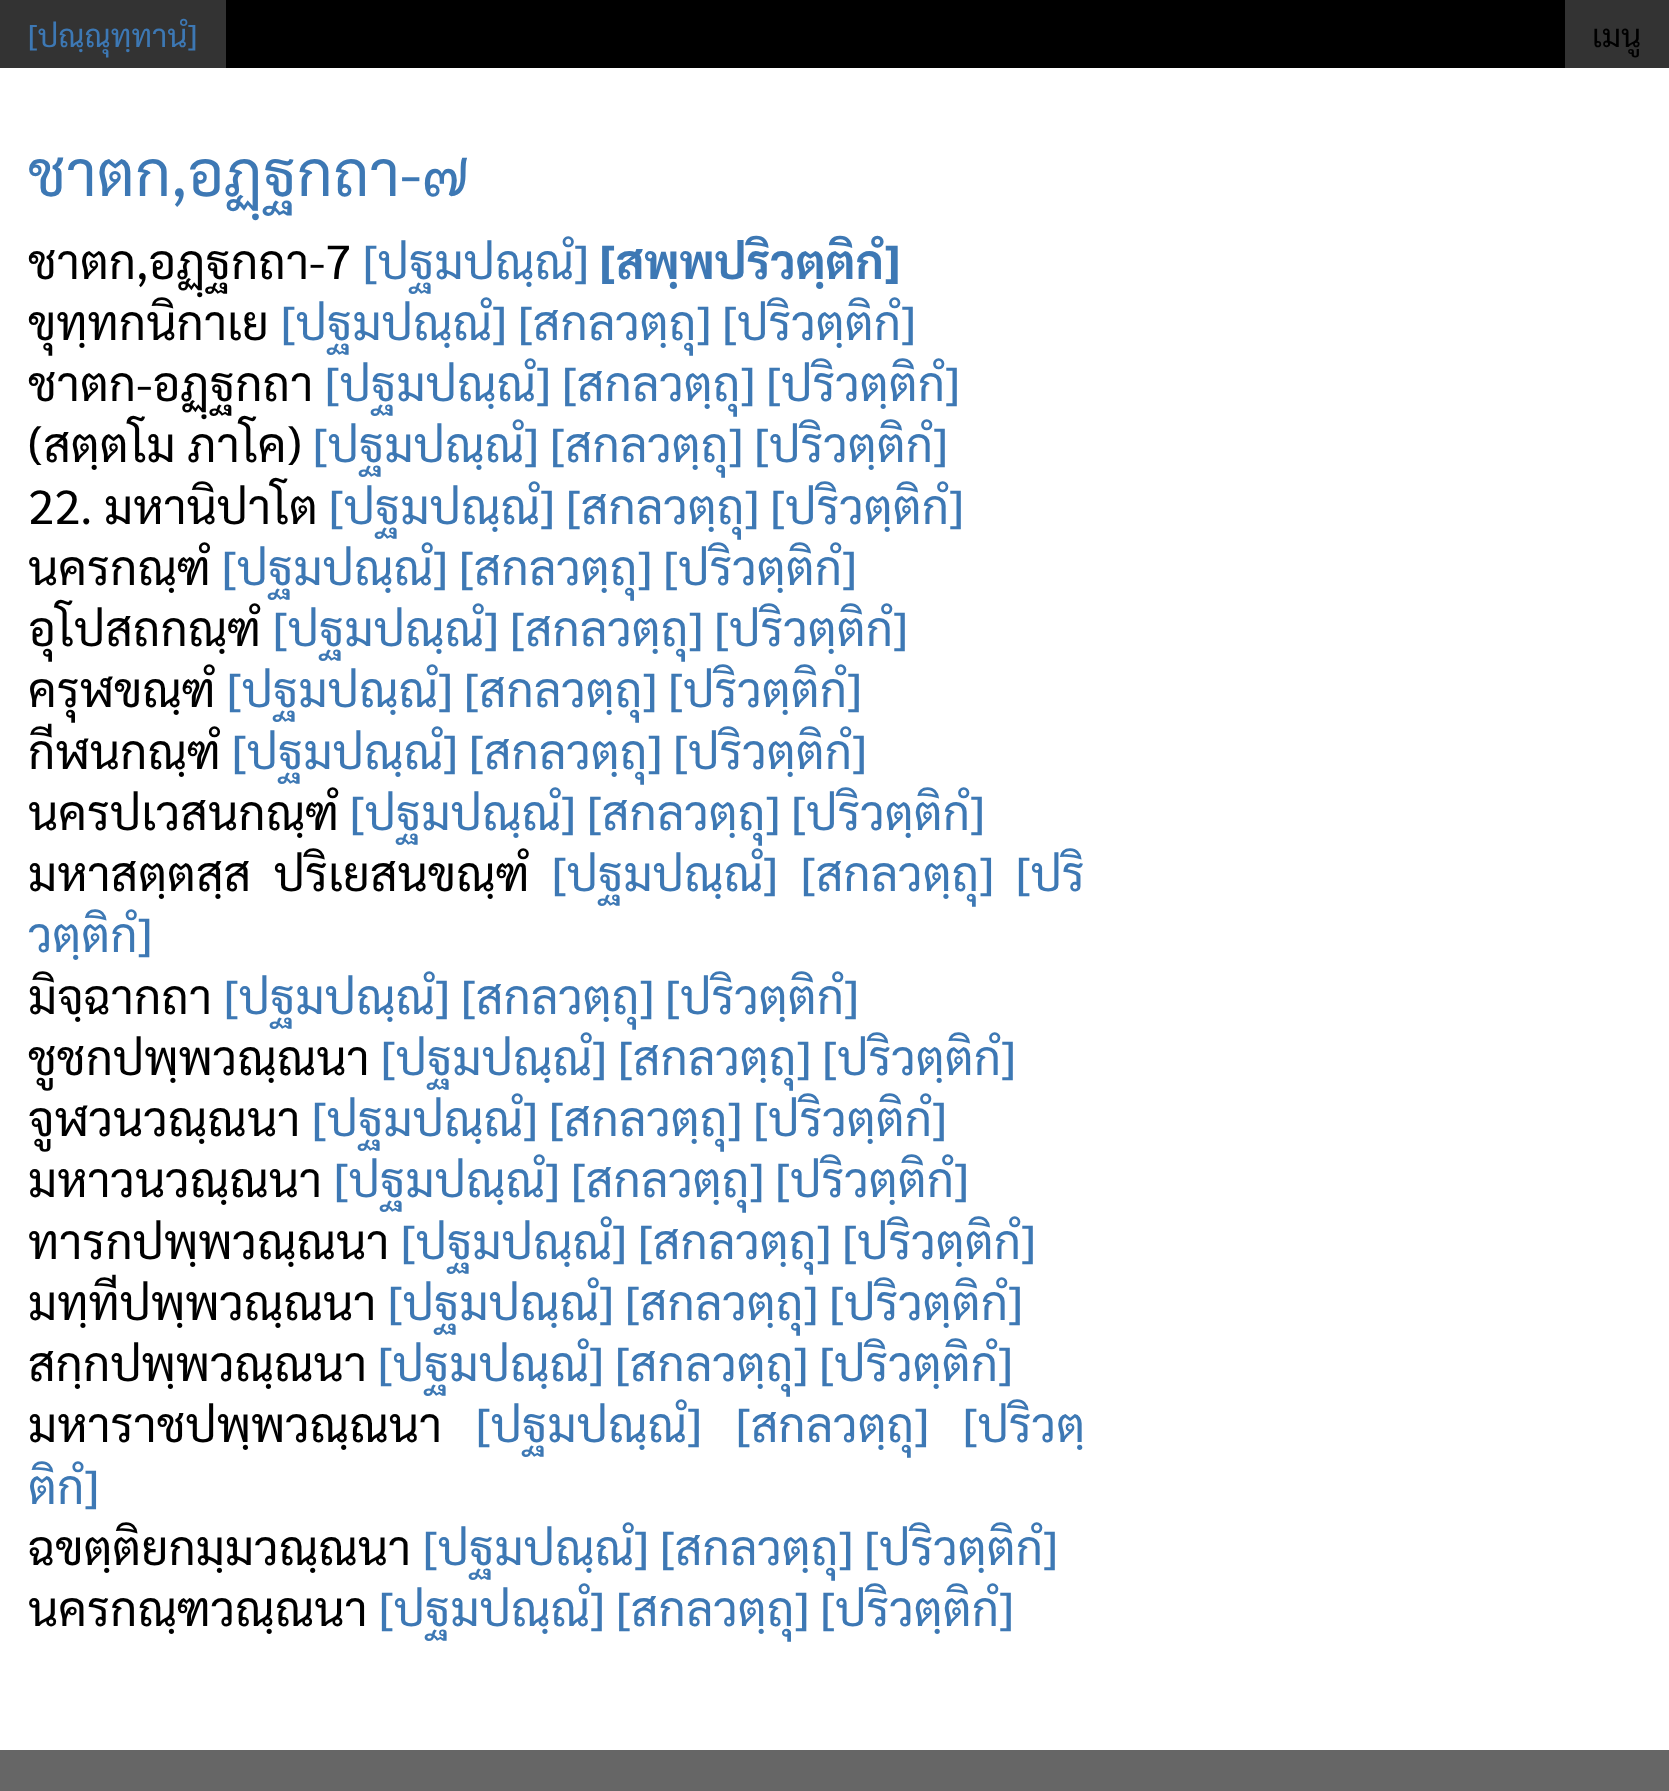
async function draw(canvas) {
  canvas.width = 1669;
  canvas.height = 1791;
  const ctx = canvas.getContext('2d');
  ctx.miterLimit = 4;
  ctx.fontKerning = 'normal';
  function label(s, x, y, font, color) {
    ctx.font = font;
    ctx.fillStyle = color;
    ctx.fillText(s, x, y);
  }
  function rect(x, y, w, h, color) {
    ctx.fillStyle = color;
    ctx.fillRect(x, y, w, h);
  }

  rect(0, 0, 1669, 1791, '#fff');
  rect(226, 0, 1339, 68, '#000');
  rect(0, 0, 226, 68, '#333');
  label('[ปณฺณุทฺทานํ]', 28, 47, '31.5px Sarabun', '#3d78b4');
  rect(1565, 0, 104, 68, '#333');
  label('เมนู', 1592, 47, '31.5px Sarabun', '#000');
  label('ชาตก,อฏฺฐกถา-๗', 28, 196, '63px Sarabun', '#3d78b4');
  label('ชาตก,อฏฺฐกถา-7', 28, 279, '47.6px Sarabun', '#000');
  label('[ปฐมปณฺณํ]', 363, 279, '47.6px Sarabun', '#3d78b4');
  label('[สพฺพปริวตฺติกํ]', 600, 279, 'bold 47.6px Sarabun', '#3d78b4');
  label('ขุทฺทกนิกาเย', 28, 340, '47.6px Sarabun', '#000');
  label('[ปฐมปณฺณํ] [สกลวตฺถุ] [ปริวตฺติกํ]', 281, 340, '47.6px Sarabun', '#3d78b4');
  label('ชาตก-อฏฺฐกถา', 28, 401, '47.6px Sarabun', '#000');
  label('[ปฐมปณฺณํ] [สกลวตฺถุ] [ปริวตฺติกํ]', 325, 401, '47.6px Sarabun', '#3d78b4');
  label('(สตฺตโม ภาโค)', 28, 462, '47.6px Sarabun', '#000');
  label('[ปฐมปณฺณํ] [สกลวตฺถุ] [ปริวตฺติกํ]', 313, 462, '47.6px Sarabun', '#3d78b4');
  label('22. มหานิปาโต', 28, 524, '47.6px Sarabun', '#000');
  label('[ปฐมปณฺณํ] [สกลวตฺถุ] [ปริวตฺติกํ]', 329, 524, '47.6px Sarabun', '#3d78b4');
  label('นครกณฺฑํ', 28, 585, '47.6px Sarabun', '#000');
  label('[ปฐมปณฺณํ] [สกลวตฺถุ] [ปริวตฺติกํ]', 222, 585, '47.6px Sarabun', '#3d78b4');
  label('อุโปสถกณฺฑํ', 28, 646, '47.6px Sarabun', '#000');
  label('[ปฐมปณฺณํ] [สกลวตฺถุ] [ปริวตฺติกํ]', 273, 646, '47.6px Sarabun', '#3d78b4');
  label('ครุฬขณฺฑํ', 28, 707, '47.6px Sarabun', '#000');
  label('[ปฐมปณฺณํ] [สกลวตฺถุ] [ปริวตฺติกํ]', 227, 707, '47.6px Sarabun', '#3d78b4');
  label('กีฬนกณฺฑํ', 28, 769, '47.6px Sarabun', '#000');
  label('[ปฐมปณฺณํ] [สกลวตฺถุ] [ปริวตฺติกํ]', 232, 769, '47.6px Sarabun', '#3d78b4');
  label('นครปเวสนกณฺฑํ', 28, 830, '47.6px Sarabun', '#000');
  label('[ปฐมปณฺณํ] [สกลวตฺถุ] [ปริวตฺติกํ]', 350, 830, '47.6px Sarabun', '#3d78b4');
  ctx.wordSpacing = '11px';
  label('มหาสตฺตสฺส ปริเยสนขณฺฑํ', 28, 891, '47.6px Sarabun', '#000');
  ctx.wordSpacing = '0px';
  label('[ปฐมปณฺณํ]', 552, 891, '47.6px Sarabun', '#3d78b4');
  label('[สกลวตฺถุ]', 801, 891, '47.6px Sarabun', '#3d78b4');
  label('[ปริ', 1016, 891, '47.6px Sarabun', '#3d78b4');
  label('วตฺติกํ]', 28, 952, '47.6px Sarabun', '#3d78b4');
  label('มิจฺฉากถา', 28, 1014, '47.6px Sarabun', '#000');
  label('[ปฐมปณฺณํ] [สกลวตฺถุ] [ปริวตฺติกํ]', 224, 1014, '47.6px Sarabun', '#3d78b4');
  label('ชูชกปพฺพวณฺณนา', 28, 1075, '47.6px Sarabun', '#000');
  label('[ปฐมปณฺณํ] [สกลวตฺถุ] [ปริวตฺติกํ]', 381, 1075, '47.6px Sarabun', '#3d78b4');
  label('จูฬวนวณฺณนา', 28, 1136, '47.6px Sarabun', '#000');
  label('[ปฐมปณฺณํ] [สกลวตฺถุ] [ปริวตฺติกํ]', 312, 1136, '47.6px Sarabun', '#3d78b4');
  label('มหาวนวณฺณนา', 28, 1197, '47.6px Sarabun', '#000');
  label('[ปฐมปณฺณํ] [สกลวตฺถุ] [ปริวตฺติกํ]', 334, 1197, '47.6px Sarabun', '#3d78b4');
  label('ทารกปพฺพวณฺณนา', 28, 1259, '47.6px Sarabun', '#000');
  label('[ปฐมปณฺณํ] [สกลวตฺถุ] [ปริวตฺติกํ]', 401, 1259, '47.6px Sarabun', '#3d78b4');
  label('มทฺทีปพฺพวณฺณนา', 28, 1320, '47.6px Sarabun', '#000');
  label('[ปฐมปณฺณํ] [สกลวตฺถุ] [ปริวตฺติกํ]', 388, 1320, '47.6px Sarabun', '#3d78b4');
  label('สกฺกปพฺพวณฺณนา', 28, 1381, '47.6px Sarabun', '#000');
  label('[ปฐมปณฺณํ] [สกลวตฺถุ] [ปริวตฺติกํ]', 378, 1381, '47.6px Sarabun', '#3d78b4');
  label('มหาราชปพฺพวณฺณนา', 28, 1442, '47.6px Sarabun', '#000');
  label('[ปฐมปณฺณํ]', 476, 1442, '47.6px Sarabun', '#3d78b4');
  label('[สกลวตฺถุ]', 736, 1442, '47.6px Sarabun', '#3d78b4');
  label('[ปริวตฺ', 963, 1442, '47.6px Sarabun', '#3d78b4');
  label('ติกํ]', 28, 1504, '47.6px Sarabun', '#3d78b4');
  label('ฉขตฺติยกมฺมวณฺณนา', 28, 1565, '47.6px Sarabun', '#000');
  label('[ปฐมปณฺณํ] [สกลวตฺถุ] [ปริวตฺติกํ]', 423, 1565, '47.6px Sarabun', '#3d78b4');
  label('นครกณฺฑวณฺณนา', 28, 1626, '47.6px Sarabun', '#000');
  label('[ปฐมปณฺณํ] [สกลวตฺถุ] [ปริวตฺติกํ]', 379, 1626, '47.6px Sarabun', '#3d78b4');
  rect(0, 1750, 1669, 41, '#666');
}

draw(document.querySelector('canvas'));
